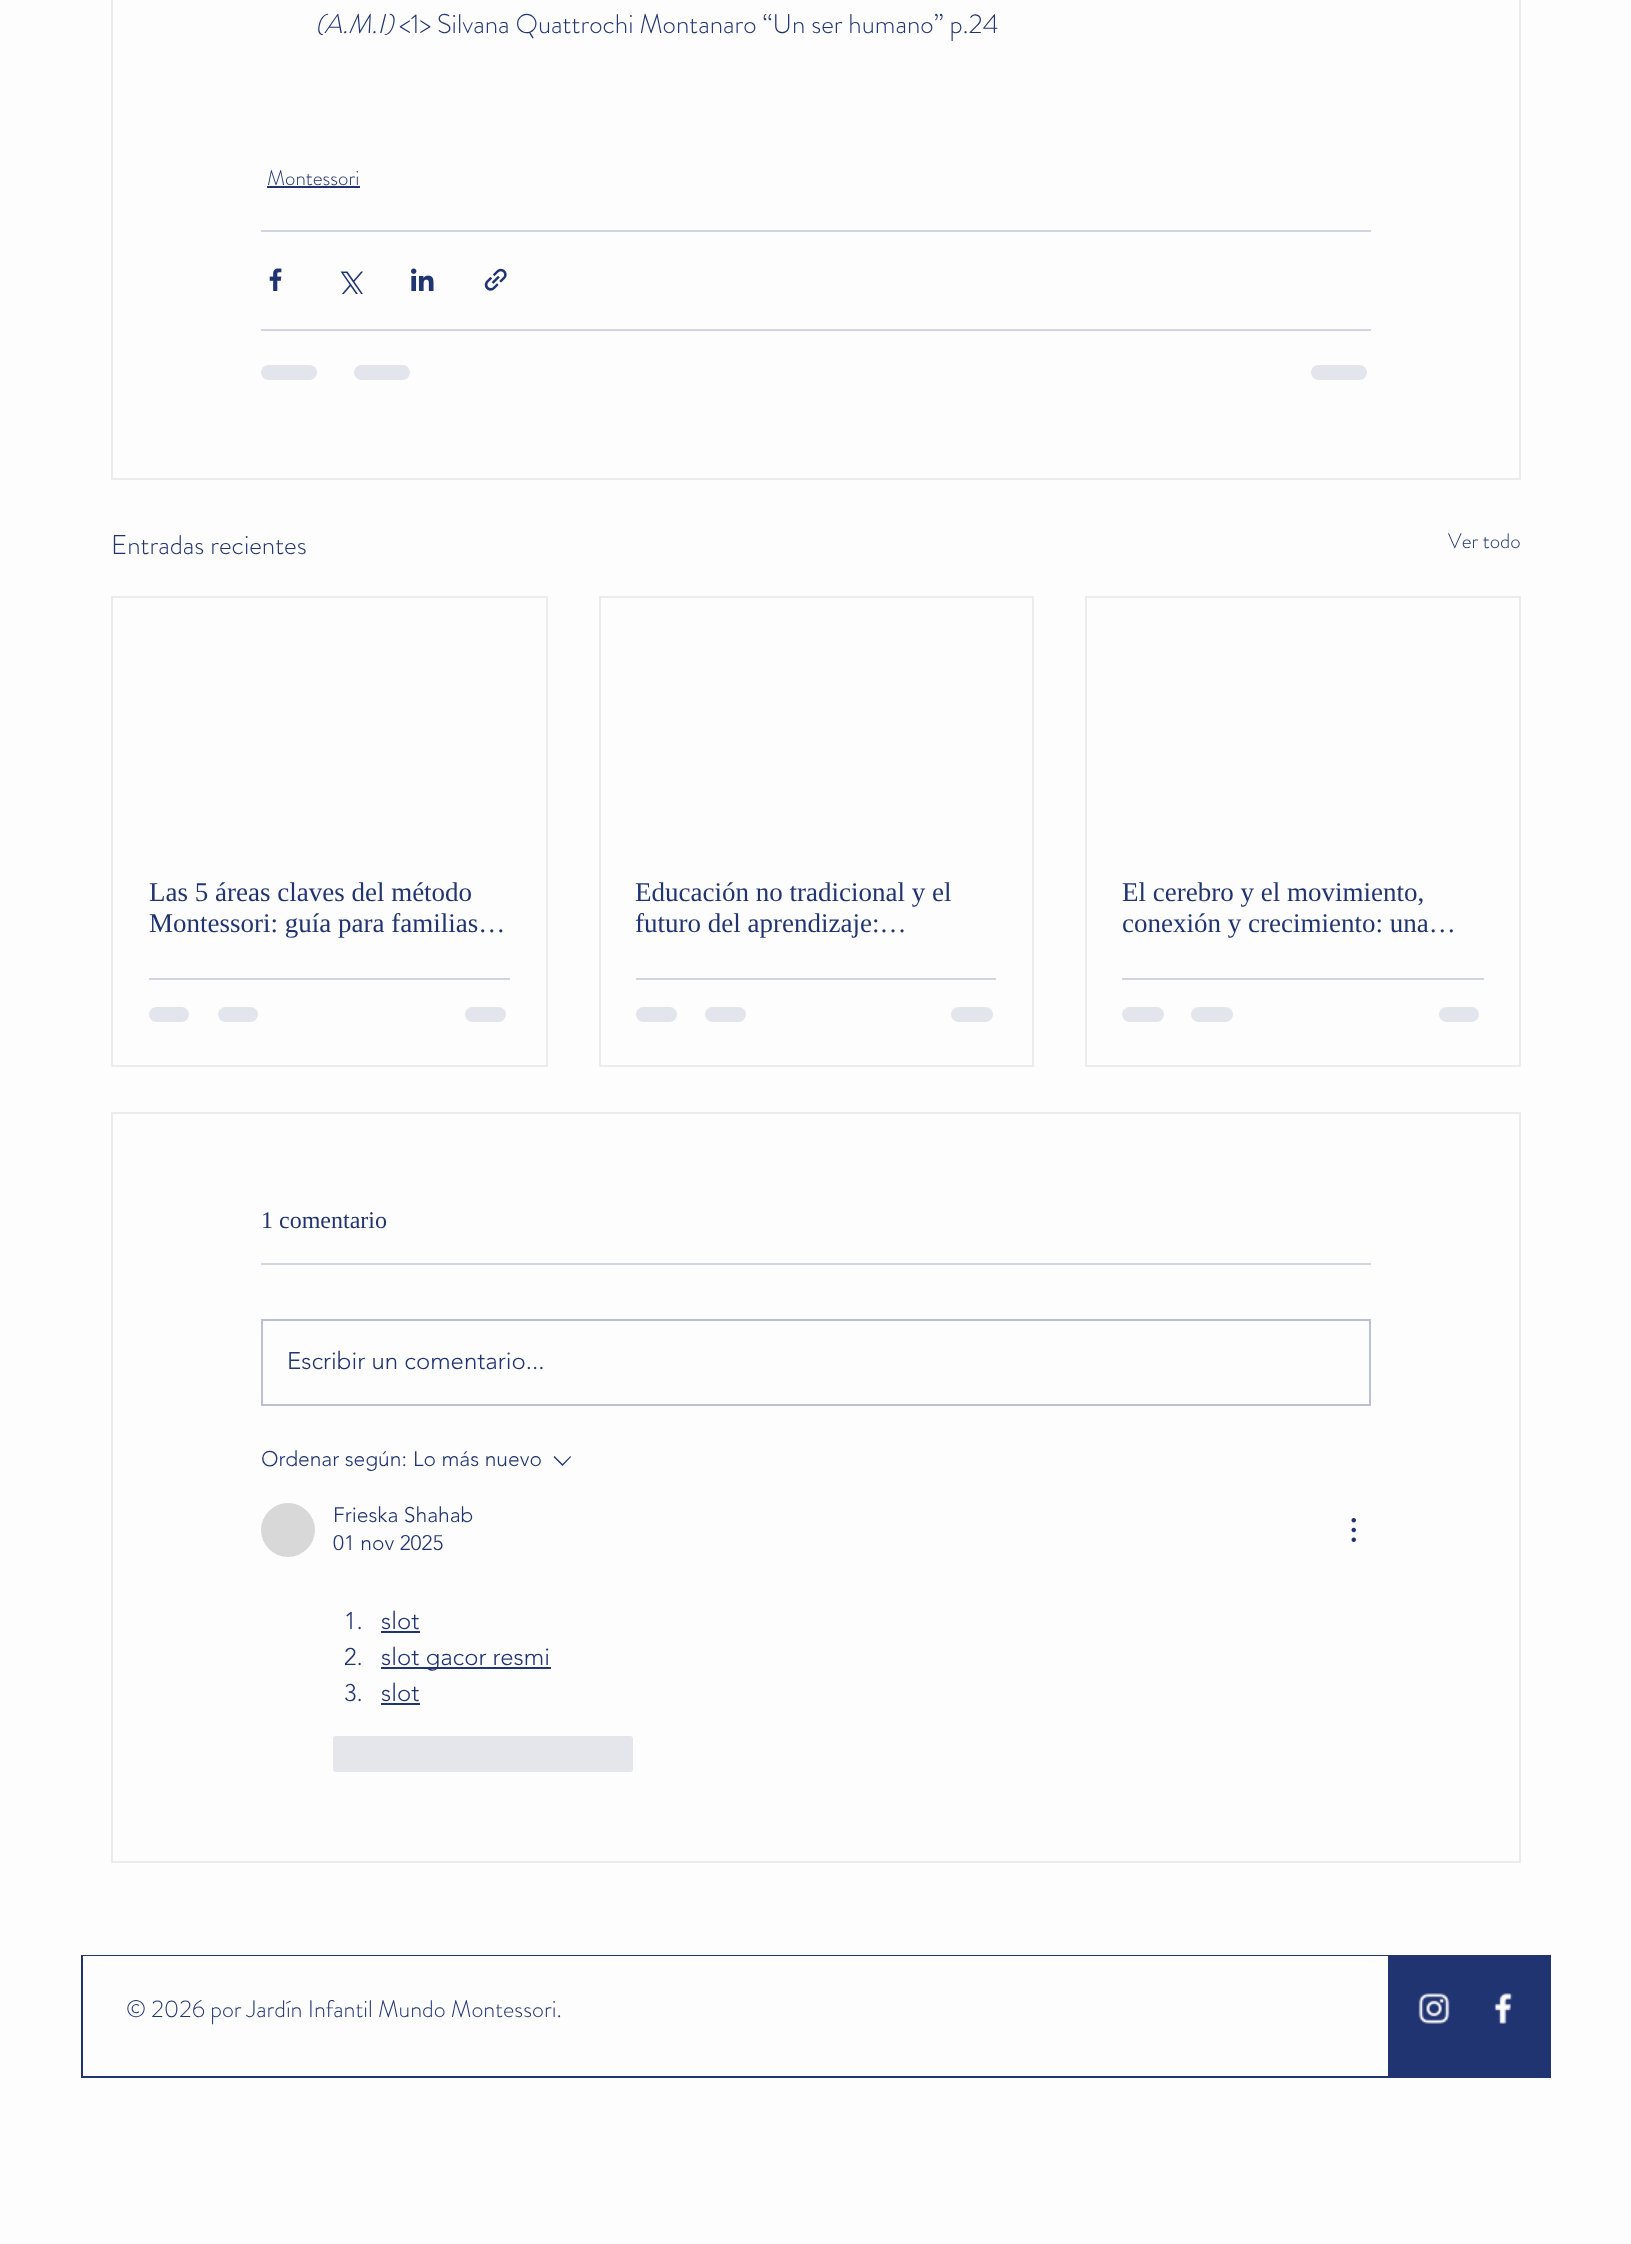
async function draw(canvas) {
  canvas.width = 1631;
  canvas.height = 2244;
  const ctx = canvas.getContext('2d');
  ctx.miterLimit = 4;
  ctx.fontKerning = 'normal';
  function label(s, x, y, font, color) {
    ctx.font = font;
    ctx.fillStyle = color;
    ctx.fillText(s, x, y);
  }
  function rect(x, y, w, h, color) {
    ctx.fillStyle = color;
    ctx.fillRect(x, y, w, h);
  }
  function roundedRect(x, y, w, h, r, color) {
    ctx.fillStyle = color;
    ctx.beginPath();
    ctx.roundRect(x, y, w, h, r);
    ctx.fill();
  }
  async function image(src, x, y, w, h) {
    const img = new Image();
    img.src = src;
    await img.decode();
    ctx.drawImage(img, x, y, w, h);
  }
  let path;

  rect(0, 0, 1631, 2244, '#fdfdfd');
  ctx.strokeStyle = '#edecec';
  ctx.lineWidth = 2;
  ctx.strokeRect(112, -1, 1408, 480);
  label('(A.M.I)', 315, 33, 'italic 300 27px "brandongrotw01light"', '#213472');
  label('<1> Silvana Quattrochi Montanaro “Un ser humano” p.24', 399, 33, '300 27px "brandongrotw01light"', '#213472');
  label('Montessori', 267, 185, '300 21px "brandongrotw01light"', '#213472');
  rect(267, 186, 93, 2, '#213472');
  rect(261, 230, 1110, 2, '#d1d5e1');
  await image('assets/img1.png', 269, 268, 13, 23);
  await image('assets/img2.png', 340, 271, 23, 23);
  await image('assets/img3.png', 411, 268, 23, 23);
  await image('assets/img4.png', 484, 268, 23, 23);
  rect(261, 329, 1110, 2, '#d1d5e1');
  roundedRect(261, 365, 56, 15, 7.5, '#e3e5ec');
  roundedRect(354, 365, 56, 15, 7.5, '#e3e5ec');
  roundedRect(1311, 365, 56, 15, 7.5, '#e3e5ec');
  label('Entradas recientes', 111, 554, '300 27px "brandongrotw01light"', '#213472');
  label('Ver todo', 1448, 548, '300 21px "brandongrotw01light"', '#213472');
  ctx.strokeRect(112, 597, 435, 469);
  label('Las 5 áreas claves del método', 149, 901, '27px Liberation Serif', '#213472');
  label('Montessori: guía para familias…', 149, 932, '27px Liberation Serif', '#213472');
  rect(149, 978, 361, 2, '#d1d5e1');
  roundedRect(149, 1007, 40, 15, 7.5, '#e3e5ec');
  roundedRect(218, 1007, 40, 15, 7.5, '#e3e5ec');
  roundedRect(465, 1007, 41, 15, 7.5, '#e3e5ec');
  ctx.strokeRect(600, 597, 433, 469);
  label('Educación no tradicional y el', 635, 901, '27px Liberation Serif', '#213472');
  label('futuro del aprendizaje:…', 635, 932, '27px Liberation Serif', '#213472');
  rect(636, 978, 360, 2, '#d1d5e1');
  roundedRect(636, 1007, 41, 15, 7.5, '#e3e5ec');
  roundedRect(705, 1007, 41, 15, 7.5, '#e3e5ec');
  roundedRect(951, 1007, 42, 15, 7.5, '#e3e5ec');
  ctx.strokeRect(1086, 597, 434, 469);
  label('El cerebro y el movimiento,', 1122, 901, '27px Liberation Serif', '#213472');
  label('conexión y crecimiento: una…', 1122, 932, '27px Liberation Serif', '#213472');
  rect(1122, 978, 362, 2, '#d1d5e1');
  roundedRect(1122, 1007, 42, 15, 7.5, '#e3e5ec');
  roundedRect(1191, 1007, 42, 15, 7.5, '#e3e5ec');
  roundedRect(1439, 1007, 40, 15, 7.5, '#e3e5ec');
  ctx.strokeRect(112, 1113, 1408, 749);
  label('1 comentario', 261, 1228, '24px Liberation Serif', '#213472');
  rect(261, 1263, 1110, 2, '#d1d5e1');
  ctx.strokeStyle = '#bbc1d3';
  ctx.strokeRect(262, 1320, 1108, 85);
  label('Escribir un comentario...', 287, 1369, '300 24px "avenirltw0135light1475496"', '#213472');
  label('Ordenar según:', 261, 1466, '300 21px "avenirltw0135light1475496"', '#213472');
  label('Lo más nuevo', 413, 1466, '300 21px "avenirltw0135light1475496"', '#213472');
  path = new Path2D('M570.5 1456L571 1457L562.5 1466L553.5 1457L554.5 1456L562.5 1464Z');
  ctx.fill(path, 'evenodd');
  ctx.fillStyle = '#d8d8d8';
  ctx.beginPath();
  ctx.arc(288, 1530, 27, 0, 2 * Math.PI);
  ctx.fill();
  label('Frieska Shahab', 333, 1522, '300 21px "avenirltw0135light1475496"', '#213472');
  label('01 nov 2025', 333, 1550, '300 21px "avenirltw0135light1475496"', '#213472');
  await image('assets/img5.png', 1351, 1518, 5, 24);
  label('1.', 344, 1629, '300 24px "avenirltw0135light1475496"', '#213472');
  label('slot', 381, 1629, '300 24px "avenirltw0135light1475496"', '#213472');
  rect(381, 1631, 39, 2, '#213472');
  label('2.', 344, 1665, '300 24px "avenirltw0135light1475496"', '#213472');
  rect(381, 1667, 170, 2, '#213472');
  label('slot gacor resmi', 381, 1665, '300 24px "avenirltw0135light1475496"', '#213472');
  label('3.', 344, 1701, '300 24px "avenirltw0135light1475496"', '#213472');
  label('slot', 381, 1701, '300 24px "avenirltw0135light1475496"', '#213472');
  rect(381, 1703, 39, 2, '#213472');
  roundedRect(333, 1736, 300, 36, 3, '#e5e6eb');
  rect(81, 1955, 1470, 123, '#213472');
  rect(83, 1956, 1305, 120, '#fdfdfd');
  label('© 2026 por Jardín Infantil Mundo Montessori.', 126, 2017, '300 24px "brandongrotw01light"', '#213472');
  await image('assets/img6.png', 1418, 1993, 32, 31);
  await image('assets/img7.png', 1494, 1993, 19, 31);
}

draw(document.querySelector('canvas'));
